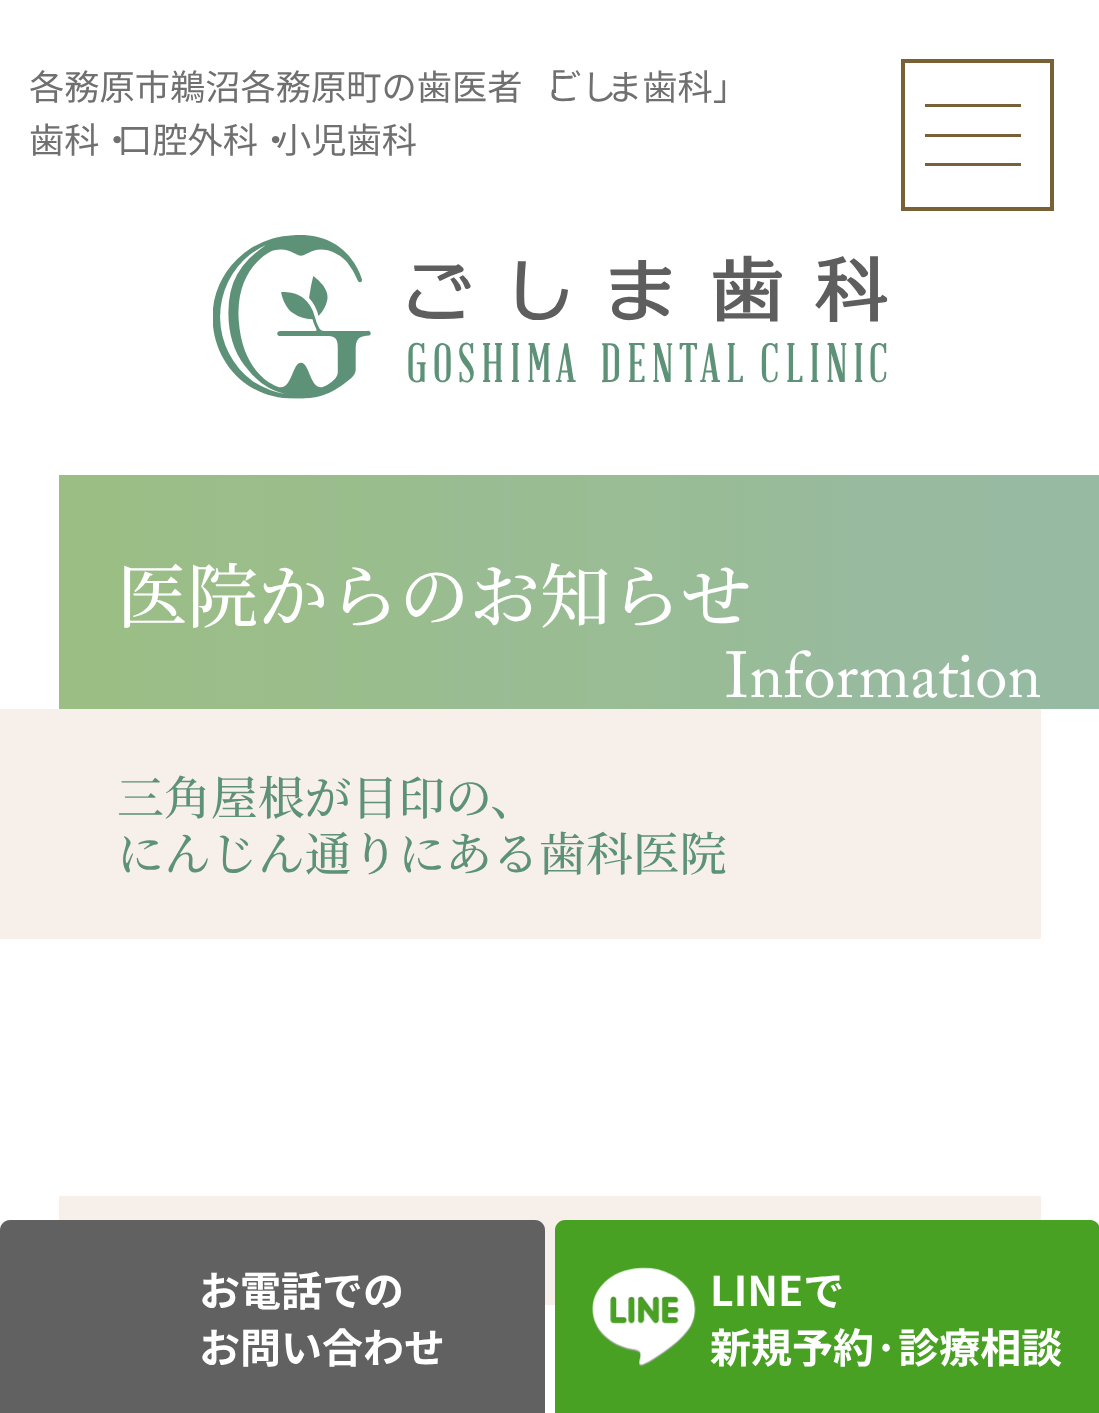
async function draw(canvas) {
  canvas.width = 1099;
  canvas.height = 1413;
  const ctx = canvas.getContext('2d');
  ctx.miterLimit = 4;
  ctx.fontKerning = 'normal';
  function label(s, x, y, font, color) {
    ctx.font = font;
    ctx.fillStyle = color;
    ctx.fillText(s, x, y);
  }
  function rect(x, y, w, h, color) {
    ctx.fillStyle = color;
    ctx.fillRect(x, y, w, h);
  }
  async function image(src, x, y, w, h) {
    const img = new Image();
    img.src = src;
    await img.decode();
    ctx.drawImage(img, x, y, w, h);
  }
  let gradient, path;

  rect(0, 0, 1099, 1413, '#fff');
  label('各務原市鵜沼各務原町の歯医者 「', 29, 100, '35.25px Noto Sans JP', '#707070');
  label('ごし', 546, 100, '35.25px Noto Sans JP', '#707070');
  label('ま歯科」', 607, 100, '35.25px Noto Sans JP', '#707070');
  label('歯科・', 29, 153, '35.25px Noto Sans JP', '#707070');
  label('口腔外科・', 117, 153, '35.25px Noto Sans JP', '#707070');
  label('小児歯科', 276, 153, '35.25px Noto Sans JP', '#707070');
  await image('assets/img1.png', 213, 235, 675, 164);
  ctx.strokeStyle = '#786136';
  ctx.lineWidth = 4;
  ctx.strokeRect(903, 61, 149, 148);
  rect(925, 134, 96, 3, '#786136');
  rect(925, 104, 96, 3, '#786136');
  rect(925, 163, 96, 3, '#786136');
  gradient = ctx.createLinearGradient(59, 592, 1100, 592);
  gradient.addColorStop(0, '#9bbe86');
  gradient.addColorStop(0.04, '#9bbe84');
  gradient.addColorStop(0.08, '#9bbe88');
  gradient.addColorStop(0.25, '#9bbd8b');
  gradient.addColorStop(0.26, '#9bbc8f');
  gradient.addColorStop(0.27, '#99be8b');
  gradient.addColorStop(0.36, '#99bd8f');
  gradient.addColorStop(0.39, '#99bc94');
  gradient.addColorStop(0.42, '#99bc92');
  gradient.addColorStop(0.43, '#9abc97');
  gradient.addColorStop(0.44, '#99bc92');
  gradient.addColorStop(0.5, '#99bc92');
  gradient.addColorStop(0.51, '#9abd95');
  gradient.addColorStop(0.63, '#98bc96');
  gradient.addColorStop(0.78, '#98ba9f');
  gradient.addColorStop(0.89, '#98ba9f');
  gradient.addColorStop(0.89, '#98baa2');
  gradient.addColorStop(1, '#97baa4');
  ctx.fillStyle = gradient;
  ctx.fillRect(59, 475, 1040, 234);
  label('医院からのお知らせ', 117, 622, '500 70.5px Noto Serif JP', '#fff');
  label('Information', 725, 697, '64.5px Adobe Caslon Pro', '#fff');
  rect(0, 709, 1041, 230, '#f7efe9');
  label('三角屋根が目印の、', 117, 815, '500 46.9px Noto Serif JP', '#5d9278');
  label('にんじん通りにある歯科医院', 117, 871, '500 46.9px Noto Serif JP', '#5d9278');
  rect(59, 1196, 982, 109, '#f7efe9');
  ctx.fillStyle = '#626161';
  path = new Path2D('M10 1220H535C540.5 1220 545 1224.5 545 1230V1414H0V1230C0 1224.5 4.5 1220 10 1220Z');
  ctx.fill(path);
  label('お電話での', 199, 1306, 'bold 41px Noto Sans JP', '#fff');
  label('お問い合わせ', 199, 1363, 'bold 41px Noto Sans JP', '#fff');
  ctx.fillStyle = '#49a123';
  path = new Path2D('M565 1220H1090C1095.5 1220 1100 1224.5 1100 1230V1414H555V1230C555 1224.5 559.5 1220 565 1220Z');
  ctx.fill(path);
  await image('assets/img2.png', 592, 1267, 104, 100);
  label('LINEで', 710, 1306, 'bold 41px Noto Sans JP', '#fff');
  label('新規予約·診療相談', 710, 1363, 'bold 41px Noto Sans JP', '#fff');
}

draw(document.querySelector('canvas'));
